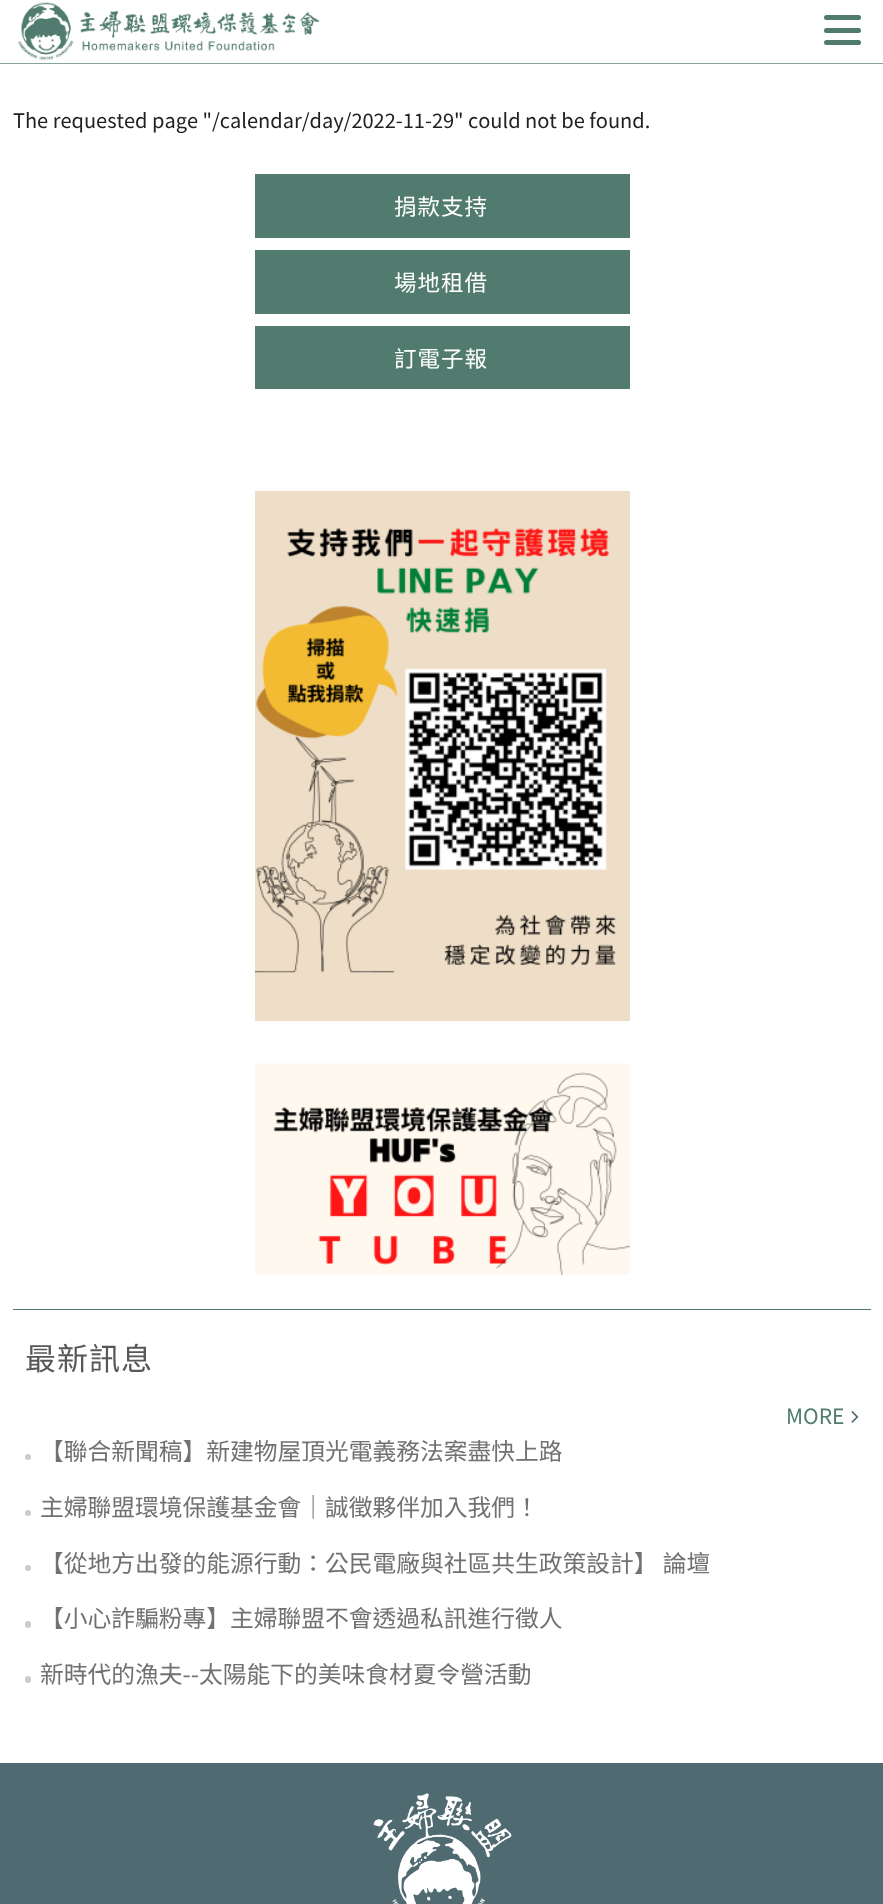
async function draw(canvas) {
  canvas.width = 883;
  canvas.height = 1904;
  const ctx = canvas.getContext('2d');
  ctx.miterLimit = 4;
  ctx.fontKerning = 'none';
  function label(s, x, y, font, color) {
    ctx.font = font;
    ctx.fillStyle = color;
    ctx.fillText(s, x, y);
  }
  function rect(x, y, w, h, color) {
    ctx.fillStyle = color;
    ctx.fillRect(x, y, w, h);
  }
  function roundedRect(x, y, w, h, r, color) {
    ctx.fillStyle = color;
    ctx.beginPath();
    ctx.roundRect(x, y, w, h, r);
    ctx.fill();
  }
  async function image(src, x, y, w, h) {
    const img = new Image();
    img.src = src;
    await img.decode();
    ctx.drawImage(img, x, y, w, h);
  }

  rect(0, 0, 883, 1904, '#fff');
  rect(0, 63, 883, 1, '#85a39a');
  await image('assets/img1.png', 18, 2, 302, 59);
  roundedRect(824, 40, 37, 5, 2.5, '#507b6e');
  roundedRect(824, 15, 37, 5, 2.5, '#507b6e');
  roundedRect(824, 28, 37, 5, 2.5, '#507b6e');
  label('The requested page "/calendar/day/2022-11-29"', 13, 128, '100 20px Noto Sans TC', '#212121');
  label('could not be found.', 468, 128, '100 20px Noto Sans TC', '#212121');
  rect(255, 174, 375, 64, '#507b6e');
  ctx.letterSpacing = '1px';
  label('捐款支持', 394, 215, '100 22.5px Noto Sans TC', '#fff');
  rect(255, 250, 375, 64, '#507b6e');
  label('場地租借', 394, 291, '100 22.5px Noto Sans TC', '#fff');
  rect(255, 326, 375, 63, '#507b6e');
  label('訂電子報', 394, 367, '100 22.5px Noto Sans TC', '#fff');
  await image('assets/img2.png', 255, 491, 375, 530);
  await image('assets/img3.png', 255, 1063, 375, 212);
  rect(13, 1309, 858, 1, '#507b6e');
  label('最新訊息', 25, 1370, '100 31px Noto Sans TC', '#595656');
  ctx.letterSpacing = '0px';
  label('MORE', 786, 1424, '100 21px Noto Sans TC', '#507b6e');
  await image('assets/img4.png', 851, 1411, 8, 12);
  ctx.fillStyle = '#ccc';
  ctx.beginPath();
  ctx.arc(28, 1457, 3, 0, 2 * Math.PI);
  ctx.fill();
  label('【聯合新聞稿】新建物屋頂光電義務法案盡快上路', 40, 1460, '100 23.75px Noto Sans TC', '#737070');
  ctx.fillStyle = '#ccc';
  ctx.beginPath();
  ctx.arc(28, 1513, 3, 0, 2 * Math.PI);
  ctx.fill();
  label('主婦聯盟環境保護基金會｜誠徵夥伴加入我們！', 40, 1516, '100 23.75px Noto Sans TC', '#737070');
  ctx.fillStyle = '#ccc';
  ctx.beginPath();
  ctx.arc(28, 1568, 3, 0, 2 * Math.PI);
  ctx.fill();
  label('【從地方出發的能源行動：公民電廠與社區共生政策設計】 論壇', 40, 1572, '100 23.75px Noto Sans TC', '#737070');
  roundedRect(25, 1621, 6, 7, 3, '#ccc');
  label('【小心詐騙粉專】主婦聯盟不會透過私訊進行徵人', 40, 1627, '100 23.75px Noto Sans TC', '#737070');
  roundedRect(25, 1676, 6, 7, 3, '#ccc');
  label('新時代的漁夫--太陽能下的美味食材夏令營活動', 40, 1683, '100 23.75px Noto Sans TC', '#737070');
  rect(0, 1763, 883, 141, '#506a71');
  await image('assets/img5.png', 373, 1793, 139, 111);
}

draw(document.querySelector('canvas'));
